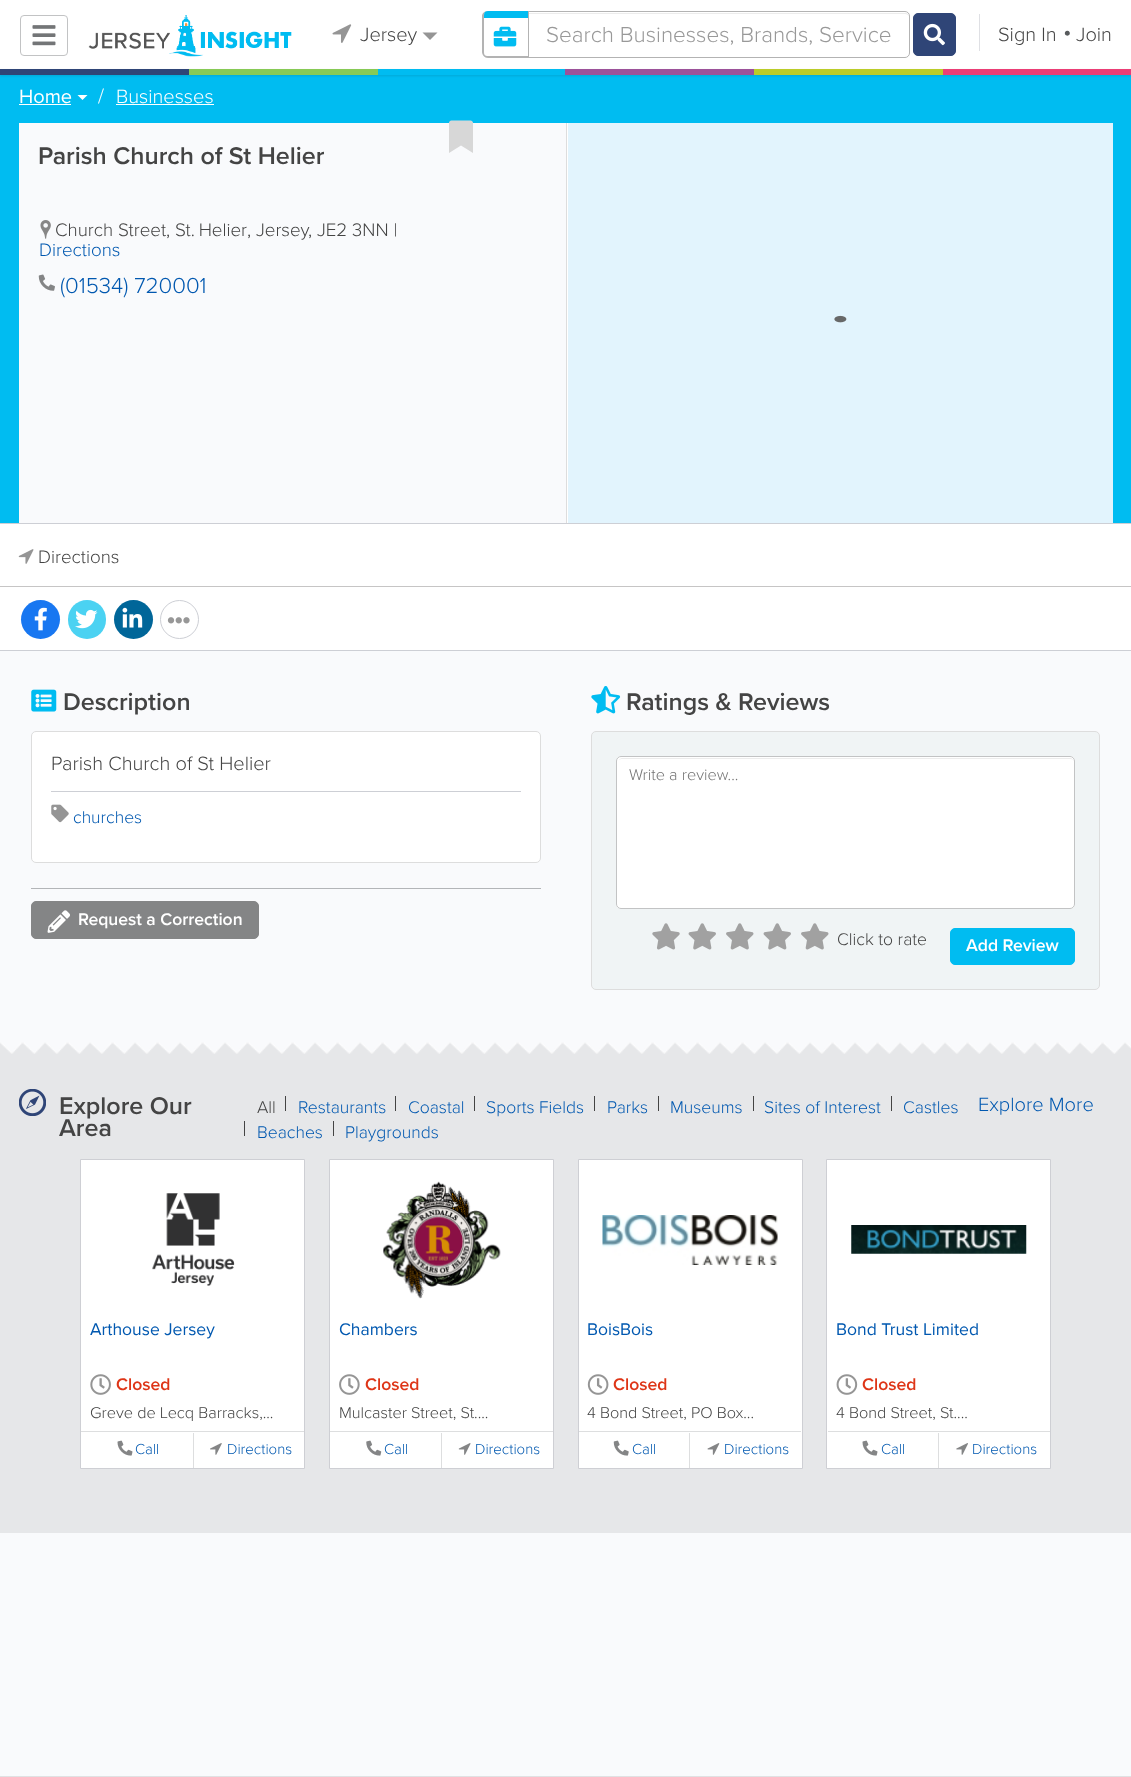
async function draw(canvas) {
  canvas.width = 1131;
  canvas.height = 1777;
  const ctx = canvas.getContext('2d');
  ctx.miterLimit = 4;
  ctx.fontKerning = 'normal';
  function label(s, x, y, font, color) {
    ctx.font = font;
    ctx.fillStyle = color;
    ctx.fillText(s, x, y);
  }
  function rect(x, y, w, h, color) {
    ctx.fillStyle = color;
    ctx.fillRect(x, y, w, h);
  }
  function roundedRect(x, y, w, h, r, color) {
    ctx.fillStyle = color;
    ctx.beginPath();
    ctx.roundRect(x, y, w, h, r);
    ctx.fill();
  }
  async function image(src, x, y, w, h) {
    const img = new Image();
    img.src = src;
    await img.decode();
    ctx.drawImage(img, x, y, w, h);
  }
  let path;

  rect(0, 0, 1131, 1777, '#f9fafc');
  rect(0, 0, 1131, 69, '#fff');
  ctx.beginPath();
  ctx.roundRect(20.5, 15.5, 47, 40, 3.5);
  ctx.strokeStyle = '#c2c3c4';
  ctx.stroke();
  await image('assets/img1.png', 32, 25, 24, 21);
  await image('assets/img2.png', 88, 15, 204, 42);
  await image('assets/img3.png', 332, 24, 20, 19);
  label('Jersey', 360, 41, '300 20px Proxima Nova', '#444');
  ctx.fillStyle = '#959595';
  path = new Path2D('M422.5 32.5H437.5L430 40Z');
  ctx.fill(path);
  ctx.fillStyle = '#ececec';
  path = new Path2D('M488 14H905C907 14 909 15 909 18C909 15 908 13 905 13H488C487 13 485 14 485 15L484 18C484 15 485 14 488 14Z');
  ctx.fill(path);
  ctx.beginPath();
  ctx.roundRect(483.5, 11.5, 426, 46, 4.5);
  ctx.strokeStyle = '#b3b3b3';
  ctx.stroke();
  ctx.fillStyle = '#fff';
  ctx.beginPath();
  ctx.roundRect(483, 11, 46, 47, [5, 0, 0, 5]);
  ctx.fill();
  ctx.fillStyle = '#b3b3b3';
  path = new Path2D('M488 11H529V58H488C485 58 482 55 482 52V16C482 13 485 11 488 11ZM488 11H528V56H488C485 56 484 55 484 52V16C484 13 485 11 488 11Z');
  ctx.fill(path, 'evenodd');
  ctx.fillStyle = '#00bcf1';
  ctx.beginPath();
  ctx.roundRect(484, 11, 44, 7, [4, 0, 0, 0]);
  ctx.fill();
  await image('assets/img4.png', 493, 26, 24, 21);
  label('Search Businesses, Brands, Service', 546, 42, '300 22.5px Proxima Nova', '#999');
  ctx.fillStyle = '#2f4577';
  ctx.beginPath();
  ctx.roundRect(913.5, 13.5, 42, 42, 4.5);
  ctx.fill();
  ctx.strokeStyle = '#2f4577';
  ctx.stroke();
  await image('assets/img5.png', 923, 23, 22, 23);
  rect(979, 14, 1, 37, '#dfe0e4');
  label('Sign In', 998, 41, '300 20px Proxima Nova', '#444');
  label('•', 1063, 39, '300 24px Proxima Nova', '#585b5d');
  label('Join', 1076, 41, '300 20px Proxima Nova', '#444');
  rect(0, 75, 1131, 448, '#00bcf1');
  ctx.fillStyle = '#0000001a';
  ctx.filter = 'blur(1px)';
  ctx.beginPath();
  ctx.rect(0, 70, 1131, 6);
  ctx.fill();
  ctx.filter = 'none';
  rect(943, 69, 188, 6, '#eb3e76');
  rect(0, 69, 189, 6, '#2f4577');
  rect(189, 69, 189, 6, '#87ca56');
  rect(378, 69, 187, 6, '#00bcf1');
  rect(565, 69, 189, 6, '#9c529a');
  rect(754, 69, 189, 6, '#bbcc29');
  label('Home', 19, 103, '20px Proxima Nova', '#fff');
  rect(19, 104, 52, 1, '#fff');
  path = new Path2D('M77.5 95H87.5L82.5 100Z');
  ctx.fill(path);
  label('/', 98, 103, '300 21px Proxima Nova', '#fff');
  label('Businesses', 116, 103, '300 20px Proxima Nova', '#fff');
  rect(116, 104, 98, 1, '#fff');
  rect(19, 123, 547, 400, '#f9fafc');
  ctx.fillStyle = '#d7d7d7';
  path = new Path2D('M449 153V122.5C449.5 120 452.5 120.5 455 120.5H467C469 120.5 472.5 120 473 122.5V153L461 145.5Z');
  ctx.fill(path);
  label('Parish Church of St Helier', 38, 164, '600 25px Proxima Nova', '#444');
  await image('assets/img6.png', 40, 220, 11, 19);
  label('Church Street,', 55, 236, '300 18.75px Proxima Nova', '#444');
  ctx.wordSpacing = '-1px';
  label('St. Helier', 175, 236, '300 18.75px Proxima Nova', '#444');
  ctx.wordSpacing = '0px';
  label(', Jersey', 247, 236, '300 18.75px Proxima Nova', '#444');
  label(', JE2 3NN |', 308, 236, '300 18.75px Proxima Nova', '#444');
  label('Directions', 39, 256, '300 18.75px Proxima Nova', '#0158b0');
  await image('assets/img7.png', 38, 274, 17, 17);
  label('(01534) 720001', 60, 293, '300 22.5px Proxima Nova', '#0158b0');
  rect(567, 123, 1, 400, '#fff');
  rect(566, 123, 1, 400, '#ddd');
  rect(568, 123, 545, 400, '#e2f4fd');
  await image('assets/img8.png', 834, 315, 13, 8);
  rect(0, 524, 1131, 126, '#fff');
  rect(0, 523, 1131, 1, '#cdcfd5');
  rect(0, 650, 1131, 1, '#cdcfd5');
  await image('assets/img9.png', 18, 549, 16, 15);
  label('Directions', 38, 563, '300 18.75px Proxima Nova', '#444');
  rect(0, 586, 1131, 1, '#c6c5c5');
  ctx.fillStyle = '#1877f1';
  ctx.beginPath();
  ctx.arc(40.5, 619.5, 19.5, 0, 2 * Math.PI);
  ctx.fill();
  await image('assets/img10.png', 34, 607, 13, 24);
  roundedRect(68, 600, 38, 39, 19, '#4bd2f2');
  await image('assets/img11.png', 75, 609, 23, 20);
  ctx.fillStyle = '#069';
  ctx.beginPath();
  ctx.arc(133.5, 619.5, 19.5, 0, 2 * Math.PI);
  ctx.fill();
  await image('assets/img12.png', 122, 607, 21, 21);
  ctx.beginPath();
  ctx.arc(179.5, 619.5, 19, 0, 2 * Math.PI);
  ctx.strokeStyle = '#cdcfd5';
  ctx.stroke();
  await image('assets/img13.png', 167, 617, 23, 7);
  await image('assets/img14.png', 31, 689, 26, 23);
  label('Description', 63, 710, '600 25px Proxima Nova', '#444');
  ctx.fillStyle = '#fff';
  ctx.beginPath();
  ctx.roundRect(31.5, 731.5, 509, 131, 4.5);
  ctx.fill();
  ctx.strokeStyle = '#ddd';
  ctx.stroke();
  label('Parish Church of St Helier', 51, 770, '300 20px Proxima Nova', '#444');
  rect(51, 791, 470, 1, '#cdcfd5');
  await image('assets/img15.png', 51, 804, 18, 19);
  label('churches', 73, 823, '300 17.5px Proxima Nova', '#0158b0');
  rect(31, 888, 510, 1, '#b3b5b8');
  ctx.fillStyle = '#848586';
  ctx.beginPath();
  ctx.roundRect(31.5, 901.5, 227, 37, 4.5);
  ctx.fill();
  ctx.strokeStyle = '#848586';
  ctx.stroke();
  await image('assets/img16.png', 47, 910, 23, 23);
  label('Request a Correction', 78, 925, '600 17.5px Proxima Nova', '#fff');
  await image('assets/img17.png', 591, 686, 30, 28);
  label('Ratings & Reviews', 626, 710, '600 25px Proxima Nova', '#444');
  ctx.fillStyle = '#f0f4f5';
  ctx.beginPath();
  ctx.roundRect(591.5, 731.5, 508, 258, 4.5);
  ctx.fill();
  ctx.strokeStyle = '#ddd';
  ctx.stroke();
  roundedRect(616, 756, 459, 153, 5, '#fff');
  ctx.fillStyle = '#ececec';
  path = new Path2D('M621 759H1070C1072 759 1074 760 1074 762C1074 760 1072 758 1070 758H622C621 758 619 759 619 760Z');
  ctx.fill(path);
  ctx.beginPath();
  ctx.roundRect(616.5, 756.5, 458, 152, 4.5);
  ctx.strokeStyle = '#c2c3c4';
  ctx.stroke();
  label('Write a review...', 629, 780, '300 16.25px Proxima Nova', '#757575');
  await image('assets/img18.png', 652, 923, 28, 27);
  await image('assets/img19.png', 688, 923, 28, 27);
  await image('assets/img20.png', 726, 923, 28, 27);
  await image('assets/img19.png', 763, 923, 28, 27);
  await image('assets/img20.png', 801, 923, 28, 27);
  label('Click to rate', 837, 945, '300 17.5px Proxima Nova', '#444');
  ctx.fillStyle = '#00bcf1';
  ctx.beginPath();
  ctx.roundRect(950.5, 928.5, 124, 36, 4.5);
  ctx.fill();
  ctx.strokeStyle = '#00bcf1';
  ctx.stroke();
  label('Add Review', 966, 951, '600 17.5px Proxima Nova', '#fff');
  rect(0, 1053, 1131, 480, '#e6e7e9');
  await image('assets/img21.png', 0, 1042, 1131, 12);
  await image('assets/img22.png', 19, 1089, 27, 27);
  label('Explore Our', 59, 1114, '600 25px Proxima Nova', '#444');
  label('Area', 59, 1136, '600 25px Proxima Nova', '#444');
  label('All', 257, 1113, '300 17.5px Proxima Nova', '#444');
  rect(285, 1096, 1, 15, '#444');
  label('Restaurants', 298, 1113, '300 17.5px Proxima Nova', '#0158b0');
  rect(395, 1096, 1, 15, '#444');
  label('Coastal', 408, 1113, '300 17.5px Proxima Nova', '#0158b0');
  rect(474, 1096, 1, 15, '#444');
  label('Sports Fields', 486, 1113, '300 17.5px Proxima Nova', '#0158b0');
  rect(594, 1096, 1, 15, '#444');
  label('Parks', 607, 1113, '300 17.5px Proxima Nova', '#0158b0');
  rect(658, 1096, 1, 15, '#444');
  label('Museums', 670, 1113, '300 17.5px Proxima Nova', '#0158b0');
  rect(753, 1096, 1, 15, '#444');
  label('Sites of Interest', 764, 1113, '300 17.5px Proxima Nova', '#0158b0');
  rect(891, 1096, 1, 15, '#444');
  label('Castles', 903, 1113, '300 17.5px Proxima Nova', '#0158b0');
  rect(244, 1121, 1, 15, '#444');
  label('Beaches', 257, 1138, '300 17.5px Proxima Nova', '#0158b0');
  rect(333, 1121, 1, 15, '#444');
  label('Playgrounds', 345, 1138, '300 17.5px Proxima Nova', '#0158b0');
  label('Explore More', 978, 1111, '300 20px Proxima Nova', '#0158b0');
  ctx.fillStyle = '#fff';
  ctx.beginPath();
  ctx.rect(80.5, 1159.5, 224, 309);
  ctx.fill();
  ctx.strokeStyle = '#cecfd4';
  ctx.stroke();
  await image('assets/img23.png', 152, 1193, 83, 93);
  label('Arthouse Jersey', 90, 1335, '17.5px Proxima Nova', '#0158b0');
  await image('assets/img24.png', 90, 1374, 21, 21);
  label('Closed', 116, 1390, '600 17.5px Proxima Nova', '#de3517');
  label('Greve de Lecq Barracks,...', 90, 1418, '300 16.25px Proxima Nova', '#444');
  rect(81, 1431, 223, 1, '#dddedf');
  await image('assets/img25.png', 117, 1440, 16, 16);
  label('Call', 135, 1454, '300 15px Proxima Nova', '#0158b0');
  rect(193, 1433, 1, 35, '#dddedf');
  await image('assets/img26.png', 210, 1443, 12, 12);
  label('Directions', 227, 1454, '300 15px Proxima Nova', '#0158b0');
  ctx.fillStyle = '#fff';
  ctx.beginPath();
  ctx.rect(329.5, 1159.5, 224, 309);
  ctx.fill();
  ctx.stroke();
  await image('assets/img27.png', 383, 1181, 118, 118);
  label('Chambers', 339, 1335, '17.5px Proxima Nova', '#0158b0');
  await image('assets/img28.png', 339, 1374, 21, 21);
  label('Closed', 365, 1390, '600 17.5px Proxima Nova', '#de3517');
  label('Mulcaster Street, St....', 339, 1418, '300 16.25px Proxima Nova', '#444');
  rect(330, 1431, 223, 1, '#dddedf');
  await image('assets/img29.png', 366, 1440, 16, 16);
  label('Call', 384, 1454, '300 15px Proxima Nova', '#0158b0');
  rect(441, 1433, 1, 35, '#dddedf');
  await image('assets/img30.png', 458, 1443, 13, 12);
  label('Directions', 475, 1454, '300 15px Proxima Nova', '#0158b0');
  ctx.fillStyle = '#fff';
  ctx.beginPath();
  ctx.rect(578.5, 1159.5, 224, 309);
  ctx.fill();
  ctx.stroke();
  await image('assets/img31.png', 602, 1215, 176, 50);
  label('BoisBois', 587, 1335, '17.5px Proxima Nova', '#0158b0');
  await image('assets/img32.png', 587, 1374, 22, 21);
  label('Closed', 613, 1390, '600 17.5px Proxima Nova', '#de3517');
  label('4 Bond Street, PO Box...', 587, 1418, '300 16.25px Proxima Nova', '#444');
  rect(579, 1431, 222, 1, '#dddedf');
  await image('assets/img33.png', 613, 1440, 16, 16);
  label('Call', 632, 1454, '300 15px Proxima Nova', '#0158b0');
  rect(689, 1433, 1, 35, '#dddedf');
  await image('assets/img34.png', 707, 1443, 13, 12);
  label('Directions', 724, 1454, '300 15px Proxima Nova', '#0158b0');
  ctx.fillStyle = '#fff';
  ctx.beginPath();
  ctx.rect(826.5, 1159.5, 224, 309);
  ctx.fill();
  ctx.stroke();
  await image('assets/img35.png', 851, 1225, 176, 29);
  label('Bond Trust Limited', 836, 1335, '17.5px Proxima Nova', '#0158b0');
  await image('assets/img36.png', 836, 1374, 22, 21);
  label('Closed', 862, 1390, '600 17.5px Proxima Nova', '#de3517');
  label('4 Bond Street, St....', 836, 1418, '300 16.25px Proxima Nova', '#444');
  rect(828, 1431, 222, 1, '#dddedf');
  await image('assets/img25.png', 862, 1440, 16, 16);
  label('Call', 881, 1454, '300 15px Proxima Nova', '#0158b0');
  rect(938, 1433, 1, 35, '#dddedf');
  await image('assets/img37.png', 956, 1443, 12, 12);
  label('Directions', 972, 1454, '300 15px Proxima Nova', '#0158b0');
  rect(0, 1776, 1131, 1, '#e0e1e3');
}

draw(document.querySelector('canvas'));
